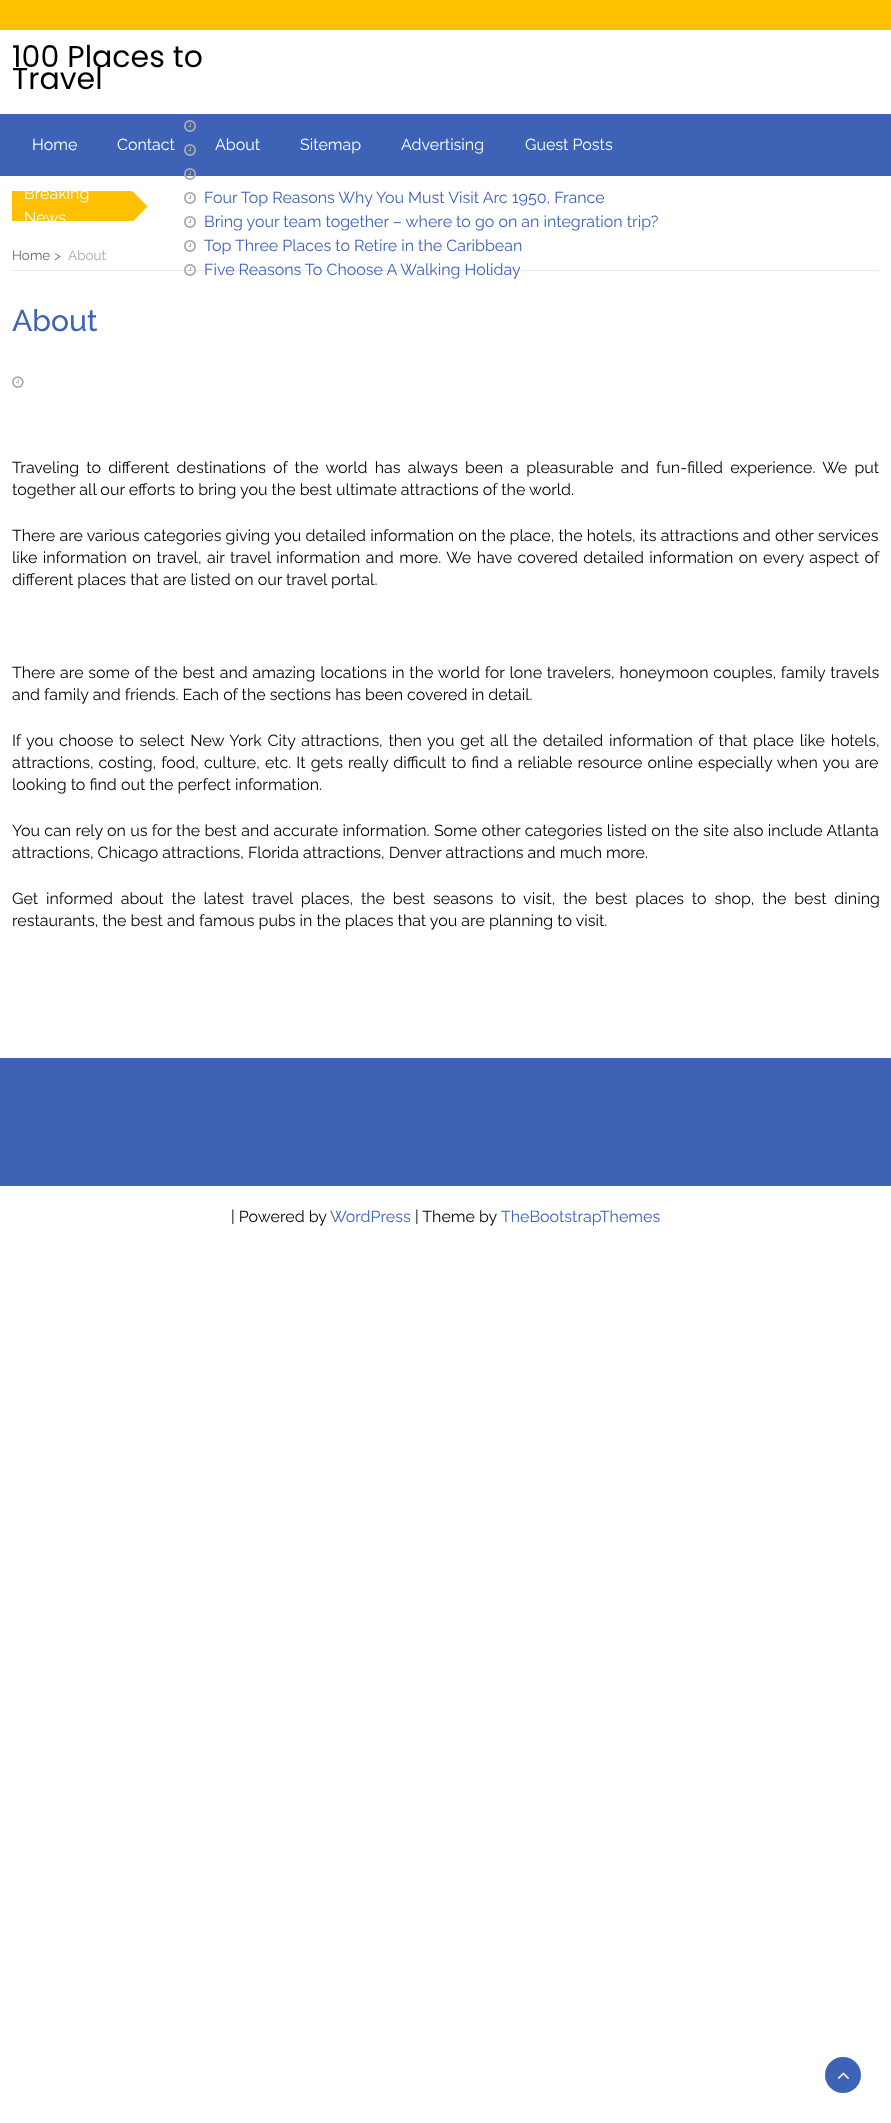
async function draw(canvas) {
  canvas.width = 891;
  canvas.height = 2123;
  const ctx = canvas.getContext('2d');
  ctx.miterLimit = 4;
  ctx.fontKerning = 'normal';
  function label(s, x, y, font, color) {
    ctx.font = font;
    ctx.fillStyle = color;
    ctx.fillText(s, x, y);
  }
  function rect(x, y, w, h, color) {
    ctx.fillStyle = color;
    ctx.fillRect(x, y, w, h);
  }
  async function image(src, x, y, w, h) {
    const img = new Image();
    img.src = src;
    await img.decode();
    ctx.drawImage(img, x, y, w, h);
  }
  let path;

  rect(0, 0, 891, 2123, '#fff');
  rect(0, 0, 891, 30, '#ffc000');
  label('100 Places to', 12, 67, '30px Poppins', '#000');
  label('Travel', 12, 89, '30px Poppins', '#000');
  rect(0, 114, 891, 62, '#3e63b6');
  label('Home', 32, 150, '16px Raleway', '#fff');
  label('Contact', 117, 150, '16px Raleway', '#fff');
  label('About', 215, 150, '16px Raleway', '#fff');
  label('Sitemap', 300, 150, '16px Raleway', '#fff');
  label('Advertising', 401, 150, '16px Raleway', '#fff');
  label('Guest Posts', 525, 150, '16px Raleway', '#fff');
  rect(12, 191, 120, 30, '#ffc000');
  label('Breaking', 24, 199, '16px Raleway', '#fff');
  ctx.fillStyle = '#ffc000';
  path = new Path2D('M118 206.5L133 191.5L147.5 206.5L133 221.5Z');
  ctx.fill(path);
  label('News', 24, 223, '16px Raleway', '#fff');
  await image('assets/img1.png', 184, 120, 12, 12);
  await image('assets/img1.png', 184, 144, 12, 12);
  await image('assets/img2.png', 184, 168, 12, 12);
  await image('assets/img3.png', 184, 192, 12, 12);
  label('Four Top Reasons Why You Must Visit Arc 1950, France', 204, 203, '16px Raleway', '#3e63b6');
  await image('assets/img3.png', 184, 216, 12, 12);
  label('Bring your team together – where to go on an integration trip?', 204, 227, '16px Raleway', '#3e63b6');
  await image('assets/img3.png', 184, 240, 12, 12);
  label('Top Three Places to Retire in the Caribbean', 204, 251, '16px Raleway', '#3e63b6');
  rect(12, 270, 867, 1, '#e9ecef');
  await image('assets/img4.png', 184, 264, 12, 12);
  label('Five Reasons To Choose A Walking Holiday', 204, 275, '16px Raleway', '#3e63b6');
  label('Home', 12, 260, '13.5px Raleway', '#666');
  label('>', 54, 260, '13.5px Raleway', '#666');
  label('About', 68, 260, '13.5px Raleway', '#aaa');
  label('About', 12, 331, '500 30px Raleway', '#3e63b6');
  await image('assets/img5.png', 12, 376, 12, 12);
  ctx.wordSpacing = '3.1px';
  label('Traveling to different destinations of the world has always been a pleasurable and fun-filled experience. We put', 12, 473, '16px Raleway', '#000');
  ctx.wordSpacing = '0px';
  label('together all our efforts to bring you the best ultimate attractions of the world.', 12, 495, '16px Raleway', '#000');
  ctx.wordSpacing = '0.1px';
  label('There are various categories giving you detailed information on the place, the hotels, its attractions and other services', 12, 541, '16px Raleway', '#000');
  ctx.wordSpacing = '1.4px';
  label('like information on travel, air travel information and more. We have covered detailed information on every aspect of', 12, 563, '16px Raleway', '#000');
  ctx.wordSpacing = '0px';
  label('different places that are listed on our travel portal.', 12, 585, '16px Raleway', '#000');
  ctx.wordSpacing = '0.75px';
  label('There are some of the best and amazing locations in the world for lone travelers, honeymoon couples, family travels', 12, 678, '16px Raleway', '#000');
  ctx.wordSpacing = '0px';
  label('and family and friends. Each of the sections has been covered in detail.', 12, 700, '16px Raleway', '#000');
  ctx.wordSpacing = '1.6px';
  label('If you choose to select New York City attractions, then you get all the detailed information of that place like hotels,', 12, 746, '16px Raleway', '#000');
  ctx.wordSpacing = '1px';
  label('attractions, costing, food, culture, etc. It gets really difficult to find a reliable resource online especially when you are', 12, 768, '16px Raleway', '#000');
  ctx.wordSpacing = '0px';
  label('looking to find out the perfect information.', 12, 790, '16px Raleway', '#000');
  ctx.wordSpacing = '0.3px';
  label('You can rely on us for the best and accurate information. Some other categories listed on the site also include Atlanta', 12, 836, '16px Raleway', '#000');
  ctx.wordSpacing = '0px';
  label('attractions, Chicago attractions, Florida attractions, Denver attractions and much more.', 12, 858, '16px Raleway', '#000');
  ctx.wordSpacing = '3.75px';
  label('Get informed about the latest travel places, the best seasons to visit, the best places to shop, the best dining', 12, 904, '16px Raleway', '#000');
  ctx.wordSpacing = '0px';
  label('restaurants, the best and famous pubs in the places that you are planning to visit.', 12, 926, '16px Raleway', '#000');
  rect(0, 1058, 891, 128, '#3e63b6');
  label('| Powered by', 231, 1222, '16px Raleway', '#000');
  label('WordPress', 330, 1222, '16px Raleway', '#3e63b6');
  label('| Theme by', 415, 1222, '16px Raleway', '#000');
  label('TheBootstrapThemes', 501, 1222, '16px Raleway', '#3e63b6');
  ctx.beginPath();
  ctx.arc(843, 2075, 18, 0, 2 * Math.PI);
  ctx.fill();
  await image('assets/img6.png', 837, 2072, 12, 7);
}

draw(document.querySelector('canvas'));
